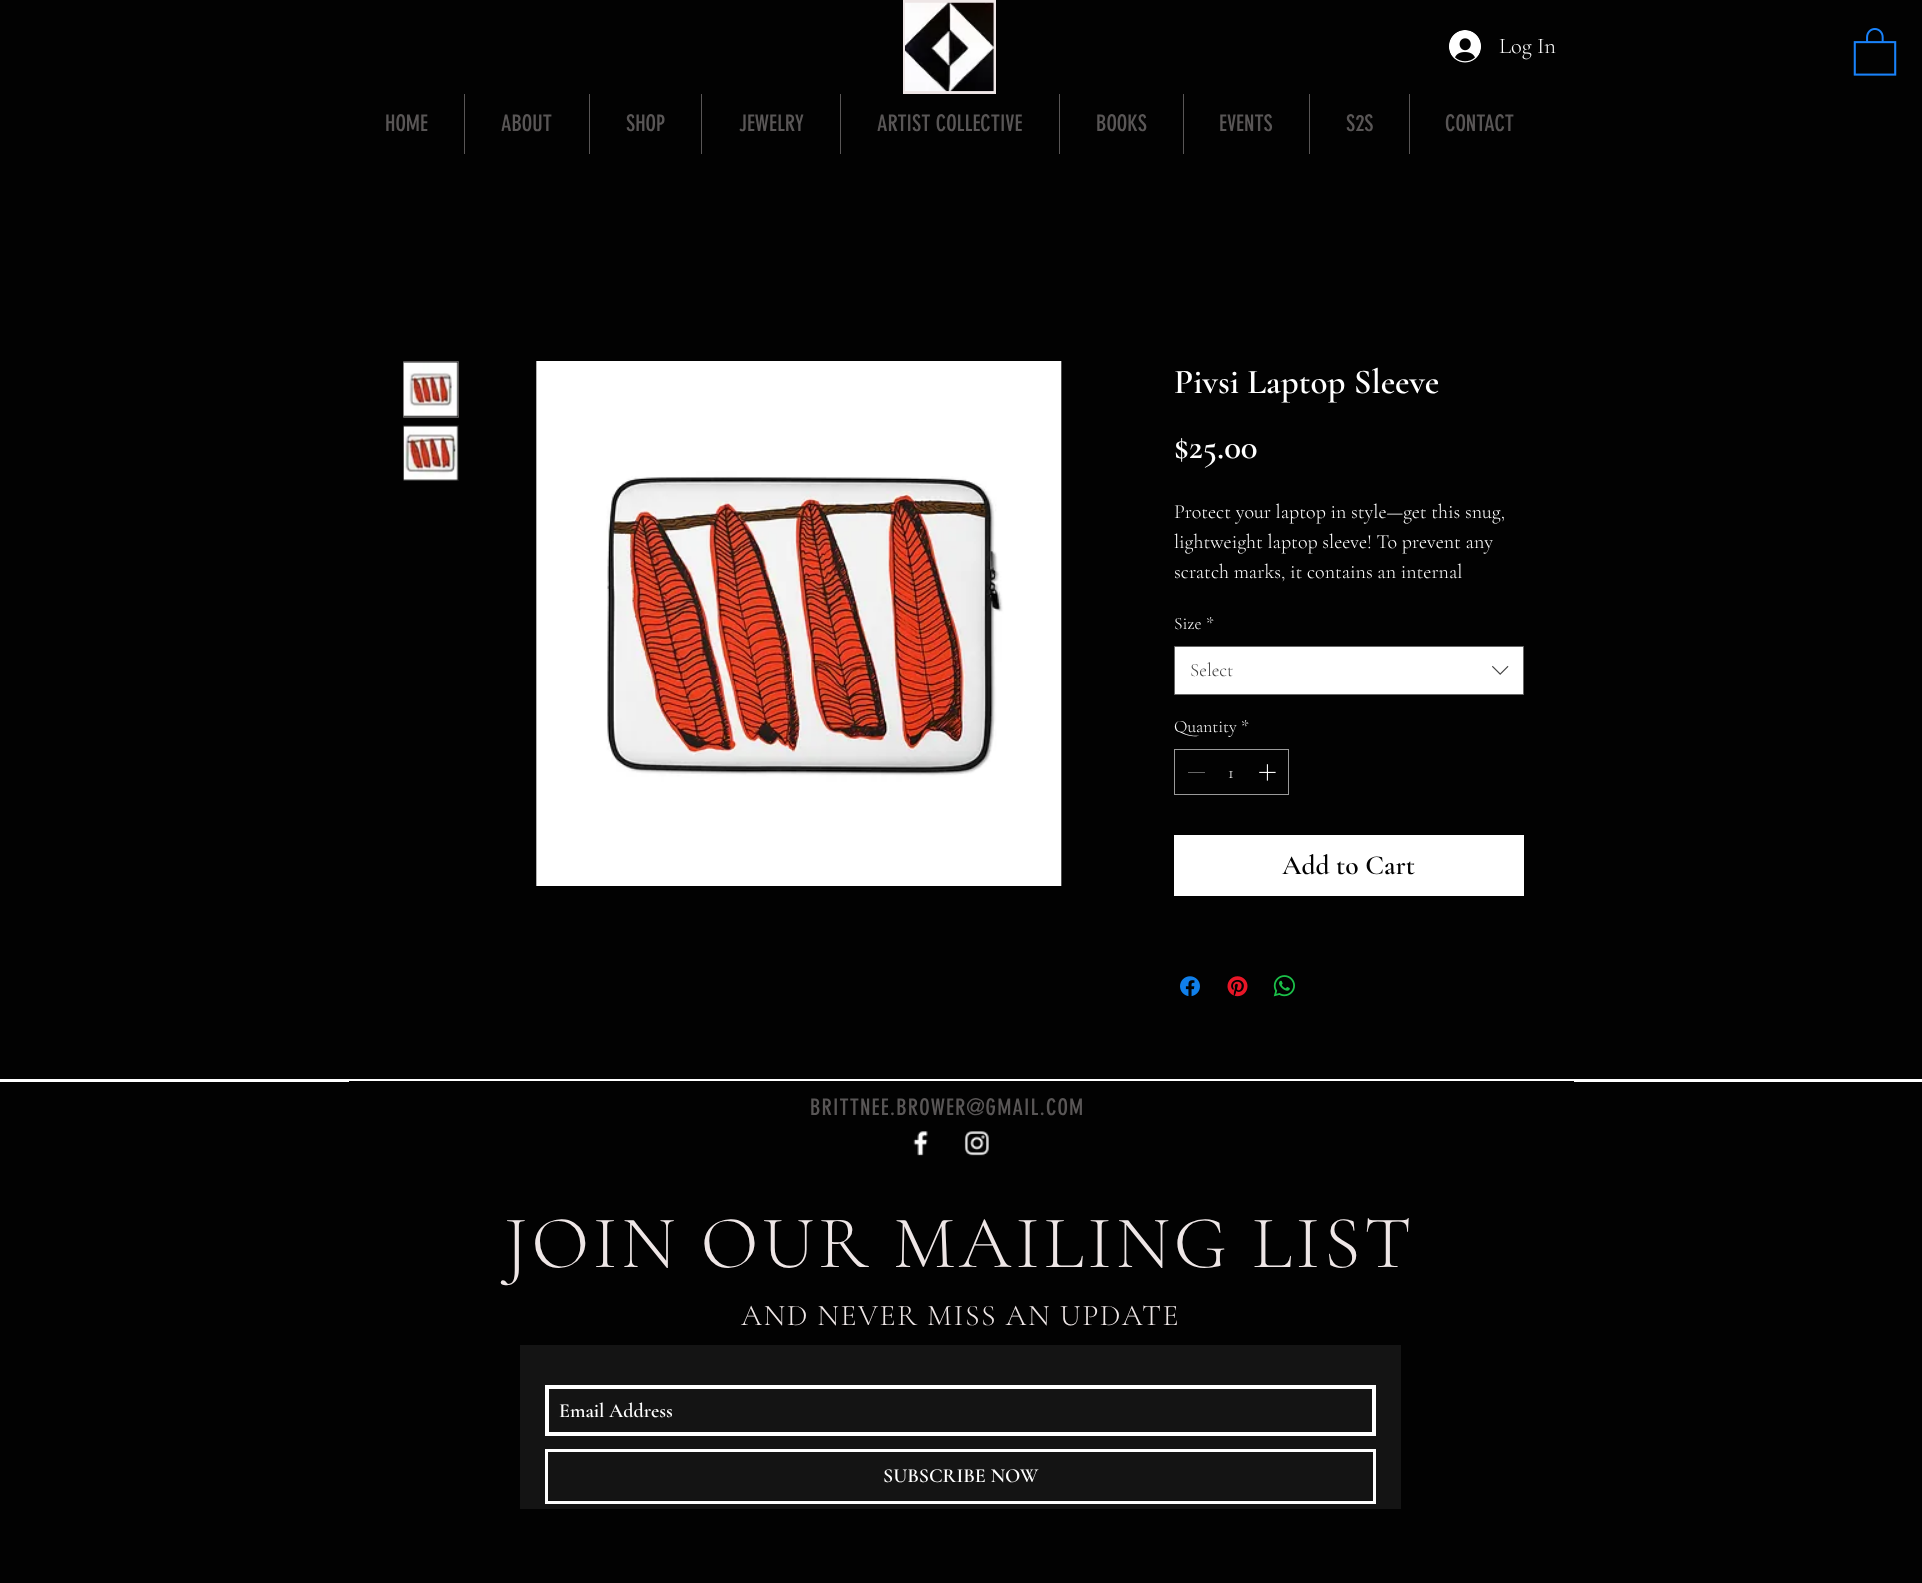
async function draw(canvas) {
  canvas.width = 1922;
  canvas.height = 1583;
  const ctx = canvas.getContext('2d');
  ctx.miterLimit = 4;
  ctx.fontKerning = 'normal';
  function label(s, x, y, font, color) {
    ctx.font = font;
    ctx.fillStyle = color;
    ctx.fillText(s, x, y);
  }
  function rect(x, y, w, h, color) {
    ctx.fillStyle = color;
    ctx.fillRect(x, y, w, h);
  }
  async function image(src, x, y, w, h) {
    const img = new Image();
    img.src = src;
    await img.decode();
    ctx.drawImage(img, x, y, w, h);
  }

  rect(0, 0, 1922, 1583, '#020202');
  rect(903, 0, 93, 94, '#eee6e6');
  await image('assets/img1.png', 905, 2, 89, 90);
  await image('assets/img2.png', 1449, 30, 32, 33);
  label('Log In', 1499, 53, '300 22.5px Cormorant Garamond', '#fff');
  label('HOME', 385, 131, '22.5px "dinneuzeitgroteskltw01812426"', '#595656');
  rect(464, 94, 1, 60, '#595656');
  label('ABOUT', 501, 131, '22.5px "dinneuzeitgroteskltw01812426"', '#595656');
  rect(589, 94, 1, 60, '#595656');
  label('SHOP', 626, 131, '22.5px "dinneuzeitgroteskltw01812426"', '#595656');
  rect(701, 94, 1, 60, '#595656');
  label('JEWELRY', 739, 131, '22.5px "dinneuzeitgroteskltw01812426"', '#595656');
  rect(840, 94, 1, 60, '#595656');
  label('ARTIST COLLECTIVE', 877, 131, '22.5px "dinneuzeitgroteskltw01812426"', '#595656');
  rect(1059, 94, 1, 60, '#595656');
  label('BOOKS', 1096, 131, '22.5px "dinneuzeitgroteskltw01812426"', '#595656');
  rect(1183, 94, 1, 60, '#595656');
  label('EVENTS', 1219, 131, '22.5px "dinneuzeitgroteskltw01812426"', '#595656');
  rect(1309, 94, 1, 60, '#595656');
  label('S2S', 1346, 131, '22.5px "dinneuzeitgroteskltw01812426"', '#595656');
  rect(1409, 94, 1, 60, '#595656');
  label('CONTACT', 1445, 131, '22.5px "dinneuzeitgroteskltw01812426"', '#595656');
  await image('assets/img3.png', 1853, 28, 44, 48);
  ctx.fillStyle = '#141414';
  ctx.beginPath();
  ctx.rect(403.5, 361.5, 55, 56);
  ctx.fill();
  ctx.strokeStyle = '#595656';
  ctx.stroke();
  await image('assets/img4.png', 403, 362, 55, 55);
  rect(403, 425, 56, 56, '#141414');
  await image('assets/img5.png', 403, 425, 55, 56);
  await image('assets/img6.png', 536, 361, 526, 525);
  label('Pivsi Laptop Sleeve', 1174, 393, '600 35px Cormorant Garamond', '#fff');
  label('$25.00', 1174, 458, '600 35px Cormorant Garamond', '#fff');
  label('Protect your laptop in style—get this snug,', 1174, 518, '300 20px Cormorant Garamond', '#fff');
  label('lightweight laptop sleeve! To prevent any', 1174, 548, '300 20px Cormorant Garamond', '#fff');
  label('scratch marks, it contains an internal', 1174, 578, '300 20px Cormorant Garamond', '#fff');
  label('Size', 1174, 629, '300 17.5px Cormorant Garamond', '#fff');
  label('*', 1206, 629, '300 17.5px Cormorant Garamond', '#fff');
  ctx.beginPath();
  ctx.rect(1174.5, 646.5, 349, 48);
  ctx.fill();
  ctx.strokeStyle = '#666';
  ctx.stroke();
  label('Select', 1190, 676, '300 19px Cormorant Garamond', '#444');
  await image('assets/img7.png', 1492, 665, 17, 10);
  label('Quantity', 1174, 732, '300 17.5px Cormorant Garamond', '#fff');
  label('*', 1241, 732, '300 17.5px Cormorant Garamond', '#fff');
  ctx.strokeStyle = '#9a9a9a';
  ctx.strokeRect(1174.5, 749.5, 114, 45);
  rect(1188, 772, 17, 1, '#656565');
  label('1', 1228, 778, '300 17.5px Cormorant Garamond', '#fff');
  await image('assets/img8.png', 1259, 764, 17, 17);
  rect(1174, 835, 350, 61, '#fff');
  label('Add to Cart', 1282, 874, '600 27.5px Cormorant Garamond', '#020202');
  await image('assets/img9.png', 1180, 976, 20, 21);
  await image('assets/img10.png', 1227, 976, 21, 21);
  await image('assets/img11.png', 1273, 975, 22, 22);
  rect(0, 1079, 1922, 3, '#fff');
  rect(349, 1081, 1225, 1, '#020202');
  ctx.letterSpacing = '1.1px';
  label('BRITTNEE.BROWER@GMAIL.COM', 810, 1115, '22.5px "dinneuzeitgroteskltw01812426"', '#595656');
  await image('assets/img12.png', 913, 1131, 15, 25);
  await image('assets/img13.png', 964, 1131, 25, 25);
  ctx.letterSpacing = '3.75px';
  label('JOIN OUR MAILING LIST', 504, 1267, '300 75px Cormorant Garamond', '#eee6e6');
  ctx.letterSpacing = '1.5px';
  label('AND NEVER MISS AN UPDATE', 741, 1325, '300 30px Cormorant Garamond', '#eee6e6');
  rect(520, 1345, 881, 164, '#141414');
  ctx.strokeStyle = '#fff';
  ctx.lineWidth = 4;
  ctx.strokeRect(547, 1387, 827, 47);
  ctx.letterSpacing = '0px';
  label('Email Address', 559, 1417, '600 20px Cormorant Garamond', '#fff');
  ctx.lineWidth = 3;
  ctx.strokeRect(546.5, 1450.5, 828, 52);
  label('SUBSCRIBE NOW', 883, 1482, '600 20px Cormorant Garamond', '#fff');
}

draw(document.querySelector('canvas'));
